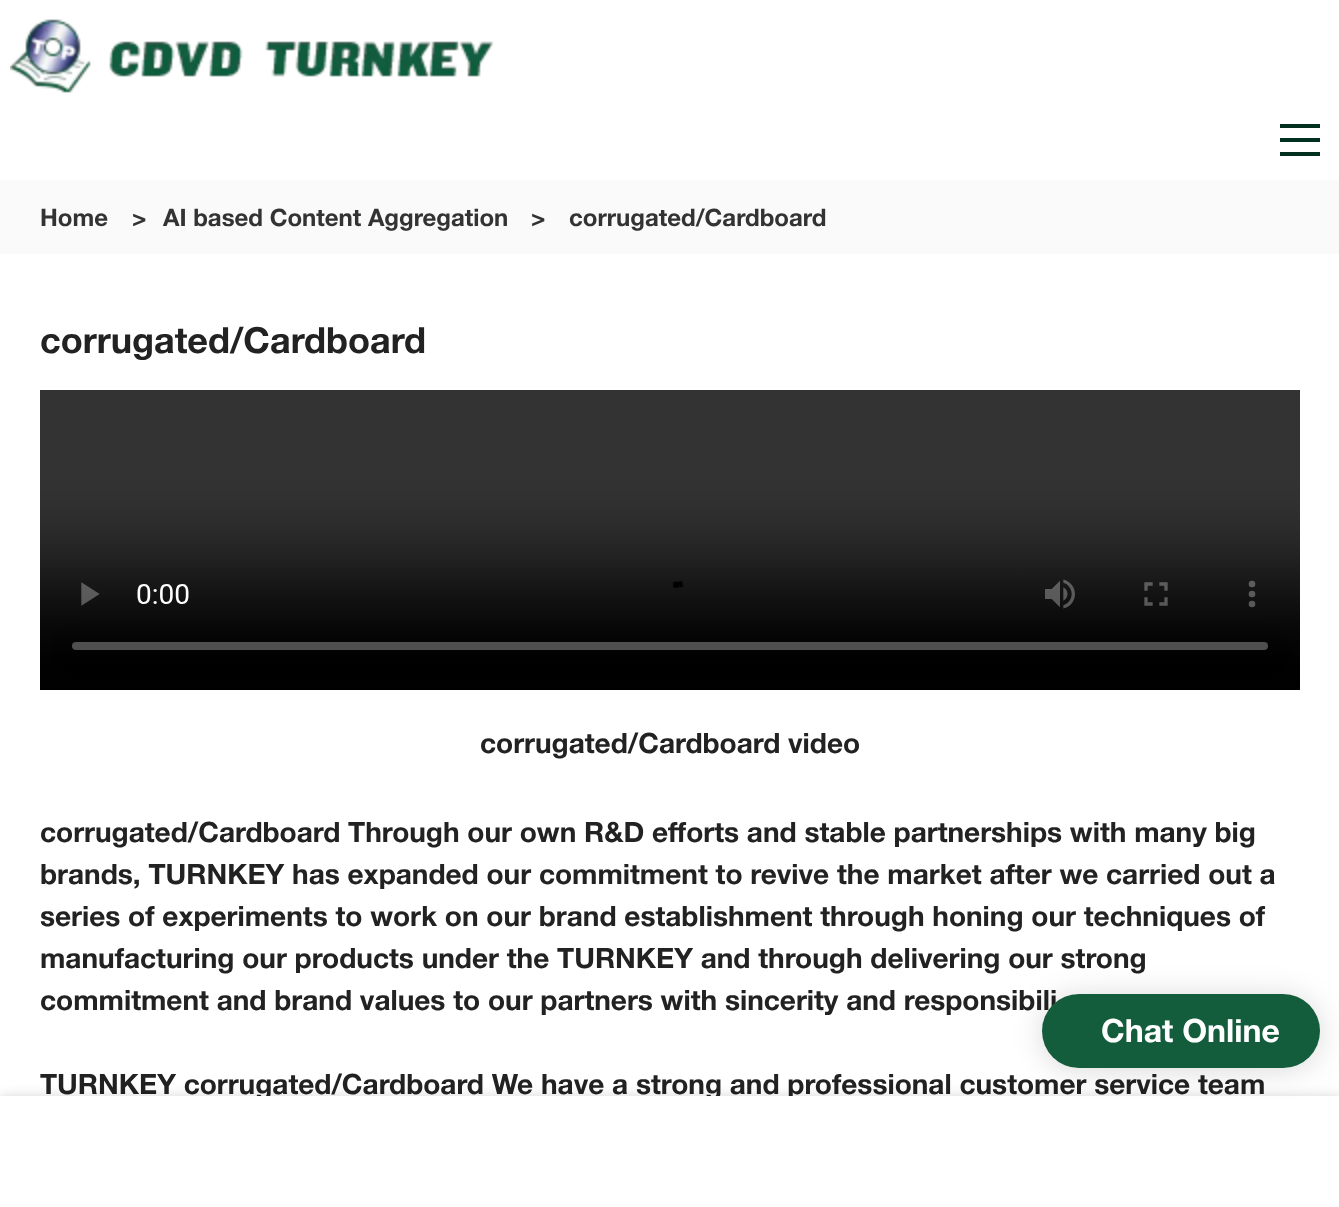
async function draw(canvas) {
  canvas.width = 1339;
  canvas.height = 1207;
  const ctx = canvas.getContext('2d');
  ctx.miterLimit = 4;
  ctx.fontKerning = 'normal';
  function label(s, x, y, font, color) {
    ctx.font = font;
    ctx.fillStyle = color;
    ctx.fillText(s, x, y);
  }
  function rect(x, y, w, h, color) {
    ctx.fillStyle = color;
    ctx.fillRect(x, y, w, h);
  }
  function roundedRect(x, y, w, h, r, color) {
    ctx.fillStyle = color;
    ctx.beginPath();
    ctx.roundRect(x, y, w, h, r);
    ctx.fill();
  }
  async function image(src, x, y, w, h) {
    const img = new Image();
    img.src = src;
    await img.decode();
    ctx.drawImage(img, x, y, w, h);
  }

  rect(0, 0, 1339, 1207, '#fff');
  await image('assets/img1.png', 10, 19, 484, 74);
  rect(1280, 124, 40, 4, '#013020');
  rect(1280, 138, 40, 4, '#013020');
  rect(1280, 152, 40, 4, '#013020');
  rect(0, 180, 1339, 74, '#fafafa');
  label('Home', 40, 226, 'bold 24px Helvetica Neue', '#333');
  label('>', 132, 226, 'bold 24px Helvetica Neue', '#333');
  label('AI based Content Aggregation', 163, 226, 'bold 24px Helvetica Neue', '#333');
  label('>', 531, 226, 'bold 24px Helvetica Neue', '#333');
  label('corrugated/Cardboard', 569, 226, 'bold 24px Helvetica Neue', '#333');
  label('corrugated/Cardboard', 40, 353, 'bold 36px Helvetica Neue', '#222');
  await image('assets/img2.png', 40, 390, 1260, 300);
  label('corrugated/Cardboard video', 480, 753, 'bold 28px Helvetica Neue', '#222');
  label('corrugated/Cardboard Through our own R&D efforts and stable partnerships with many big', 40, 842, 'bold 28px Helvetica Neue', '#222');
  label('brands, TURNKEY has expanded our commitment to revive the market after we carried out a', 40, 884, 'bold 28px Helvetica Neue', '#222');
  label('series of experiments to work on our brand establishment through honing our techniques of', 40, 926, 'bold 28px Helvetica Neue', '#222');
  label('manufacturing our products under the TURNKEY and through delivering our strong', 40, 968, 'bold 28px Helvetica Neue', '#222');
  label('commitment and brand values to our partners with sincerity and responsibili', 40, 1010, 'bold 28px Helvetica Neue', '#222');
  label('TURNKEY corrugated/Cardboard We have a strong and professional customer service team', 40, 1094, 'bold 28px Helvetica Neue', '#222');
  ctx.fillStyle = '#00000029';
  ctx.filter = 'blur(6px)';
  ctx.beginPath();
  ctx.rect(0, 1096, 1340, 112);
  ctx.fill();
  ctx.filter = 'none';
  rect(0, 1096, 1339, 111, '#fff');
  ctx.fillStyle = '#00000026';
  ctx.filter = 'blur(15px)';
  ctx.beginPath();
  ctx.roundRect(1042, 996, 278, 74, 37);
  ctx.fill();
  ctx.filter = 'none';
  roundedRect(1042, 994, 278, 74, 37, '#135c3c');
  label('Chat Online', 1101, 1042, 'bold 32px Helvetica Neue', '#fff');
}

draw(document.querySelector('canvas'));
